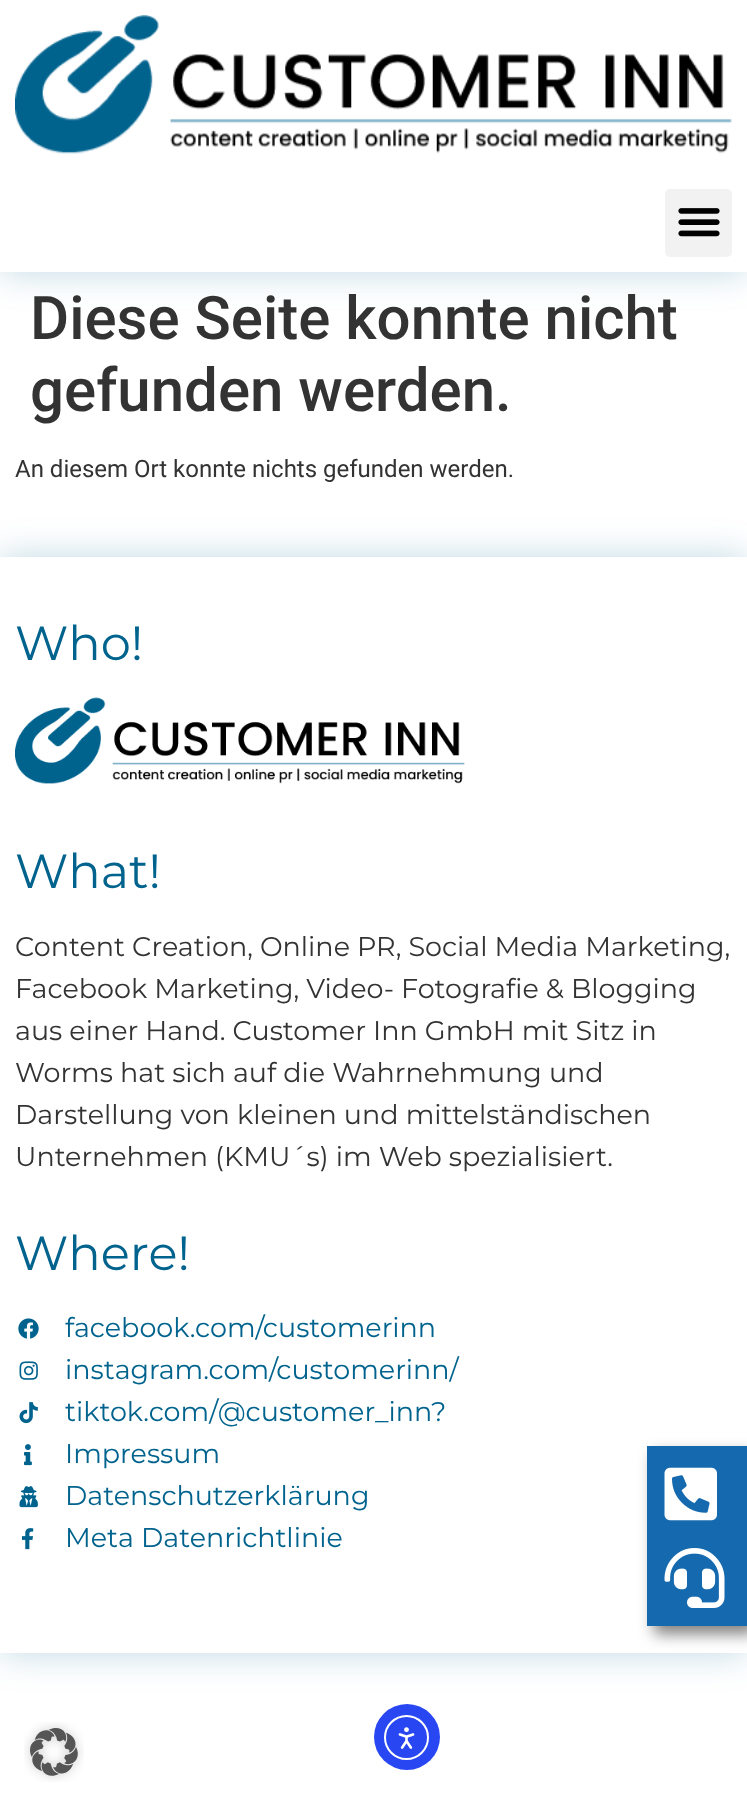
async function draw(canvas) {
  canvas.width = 747;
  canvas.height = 1805;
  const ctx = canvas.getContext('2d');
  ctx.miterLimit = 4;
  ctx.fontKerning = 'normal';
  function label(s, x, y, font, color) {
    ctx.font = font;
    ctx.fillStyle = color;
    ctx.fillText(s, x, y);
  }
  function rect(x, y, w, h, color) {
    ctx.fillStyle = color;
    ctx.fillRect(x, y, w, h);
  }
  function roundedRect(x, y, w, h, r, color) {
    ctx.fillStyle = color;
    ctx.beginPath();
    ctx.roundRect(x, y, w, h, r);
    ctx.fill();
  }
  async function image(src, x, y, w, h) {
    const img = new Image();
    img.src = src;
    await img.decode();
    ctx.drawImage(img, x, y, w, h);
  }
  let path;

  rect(0, 0, 747, 1805, '#fff');
  ctx.save();
  path = new Path2D('M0 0H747V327H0ZM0 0H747V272H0Z');
  ctx.clip(path, 'evenodd');
  ctx.fillStyle = '#00638e40';
  ctx.filter = 'blur(18px)';
  ctx.beginPath();
  ctx.rect(0, 0, 747, 272);
  ctx.fill();
  ctx.filter = 'none';
  ctx.restore();
  rect(0, 271, 747, 1, '#ffffffe0');
  await image('assets/img1.png', 15, 15, 717, 139);
  roundedRect(665, 189, 67, 68, 5, '#f2f2f2');
  await image('assets/img2.png', 678, 208, 42, 29);
  label('Diese Seite konnte nicht', 30, 339, '500 60px Roboto', '#333');
  label('gefunden werden.', 30, 411, '500 60px Roboto', '#333');
  label('An diesem Ort konnte nichts gefunden werden.', 15, 477, '24px Roboto', '#333');
  ctx.save();
  path = new Path2D('M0 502H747V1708H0ZM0 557H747V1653H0Z');
  ctx.clip(path, 'evenodd');
  ctx.fillStyle = '#00638e40';
  ctx.filter = 'blur(18px)';
  ctx.beginPath();
  ctx.rect(0, 557, 747, 1096);
  ctx.fill();
  ctx.filter = 'none';
  ctx.restore();
  label('Who!', 15, 660, '100 48px Montserrat', '#00638e');
  await image('assets/img3.png', 15, 697, 450, 87);
  label('What!', 15, 888, '100 48px Montserrat', '#00638e');
  label('Content Creation, Online PR, Social Media Marketing,', 15, 956, '100 27px Montserrat', '#333');
  label('Facebook Marketing, Video- Fotografie & Blogging', 15, 998, '100 27px Montserrat', '#333');
  label('aus einer Hand. Customer Inn GmbH mit Sitz in', 15, 1040, '100 27px Montserrat', '#333');
  label('Worms hat sich auf die Wahrnehmung und', 15, 1082, '100 27px Montserrat', '#333');
  label('Darstellung von kleinen und mittelständischen', 15, 1124, '100 27px Montserrat', '#333');
  label('Unternehmen (KMU´s) im Web spezialisiert.', 15, 1166, '100 27px Montserrat', '#333');
  label('Where!', 15, 1270, '100 48px Montserrat', '#00638e');
  await image('assets/img4.png', 18, 1318, 21, 21);
  label('facebook.com/customerinn', 65, 1337, '100 27px Montserrat', '#00638e');
  await image('assets/img5.png', 19, 1361, 19, 19);
  label('instagram.com/customerinn/', 65, 1379, '100 27px Montserrat', '#00638e');
  await image('assets/img6.png', 19, 1402, 19, 22);
  label('tiktok.com/@customer_inn?', 65, 1421, '100 27px Montserrat', '#00638e');
  await image('assets/img7.png', 24, 1444, 8, 22);
  label('Impressum', 65, 1463, '100 27px Montserrat', '#00638e');
  await image('assets/img8.png', 19, 1486, 19, 22);
  label('Datenschutzerklärung', 65, 1505, '100 27px Montserrat', '#00638e');
  await image('assets/img9.png', 21, 1528, 13, 22);
  label('Meta Datenrichtlinie', 65, 1547, '100 27px Montserrat', '#00638e');
  ctx.fillStyle = '#00000080';
  ctx.filter = 'blur(7.5px)';
  ctx.beginPath();
  ctx.rect(654, 1454, 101, 180);
  ctx.fill();
  ctx.filter = 'none';
  rect(647, 1446, 100, 180, '#1569ae');
  await image('assets/img10.png', 664, 1467, 53, 54);
  await image('assets/img11.png', 664, 1548, 61, 60);
  await image('assets/img12.png', 24, 1722, 60, 60);
  ctx.fillStyle = '#2847f3';
  ctx.beginPath();
  ctx.arc(407, 1737, 33, 0, 2 * Math.PI);
  ctx.fill();
  ctx.beginPath();
  ctx.arc(406.5, 1737.5, 21.5, 0, 2 * Math.PI);
  ctx.strokeStyle = '#fff';
  ctx.lineWidth = 2;
  ctx.stroke();
  await image('assets/img13.png', 398, 1727, 17, 22);
}

draw(document.querySelector('canvas'));
